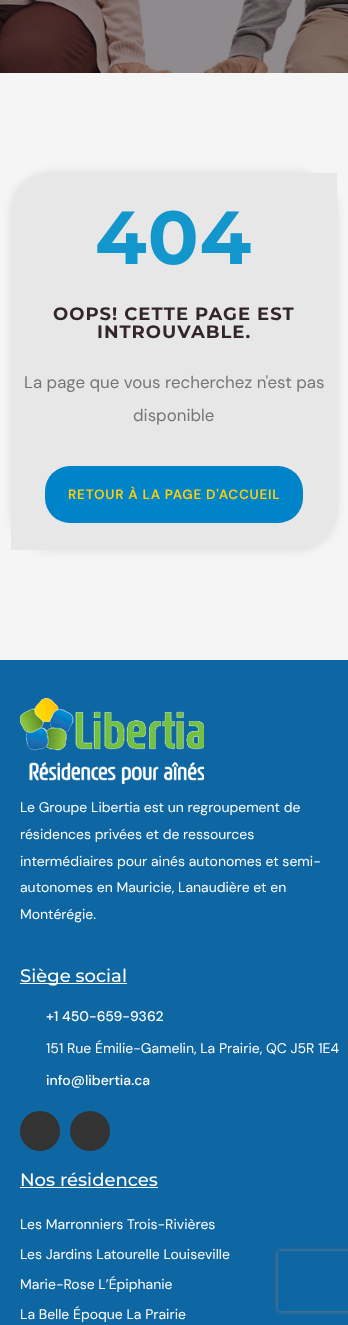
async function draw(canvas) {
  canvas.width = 348;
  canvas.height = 1325;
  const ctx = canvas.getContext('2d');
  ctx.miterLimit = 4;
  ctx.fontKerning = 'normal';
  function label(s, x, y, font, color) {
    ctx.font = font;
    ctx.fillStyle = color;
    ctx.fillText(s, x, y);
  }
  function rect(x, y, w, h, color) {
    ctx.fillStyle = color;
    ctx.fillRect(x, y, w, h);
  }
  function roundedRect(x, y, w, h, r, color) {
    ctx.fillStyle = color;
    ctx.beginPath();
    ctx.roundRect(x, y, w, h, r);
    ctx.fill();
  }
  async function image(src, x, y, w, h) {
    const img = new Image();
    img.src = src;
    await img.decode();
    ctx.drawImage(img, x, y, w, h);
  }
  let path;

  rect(0, 0, 348, 1325, '#fff');
  await image('assets/img1.png', 0, 0, 348, 73);
  rect(0, 73, 348, 587, '#f5f5f5');
  ctx.fillStyle = '#0000001a';
  ctx.filter = 'blur(5px)';
  ctx.beginPath();
  ctx.roundRect(11, 173, 326, 377, 40);
  ctx.fill();
  ctx.filter = 'none';
  ctx.fillStyle = '#e7e7e7';
  ctx.beginPath();
  ctx.roundRect(11, 173, 326, 377, [40, 0, 40, 0]);
  ctx.fill();
  ctx.letterSpacing = '1px';
  label('404', 95, 264, 'bold 75px Montserrat', '#1296cc');
  label('OOPS! CETTE PAGE EST', 53, 320, 'bold 18px Montserrat', '#32262c');
  label('INTROUVABLE.', 97, 338, 'bold 18px Montserrat', '#32262c');
  ctx.letterSpacing = '0px';
  label('La page que vous recherchez n\'est pas', 24, 388, '16.9px DM Sans', '#767676');
  label('disponible', 133, 421, '16.9px DM Sans', '#767676');
  roundedRect(45, 466, 258, 57, 25, '#0084c9');
  ctx.letterSpacing = '0.75px';
  label('RETOUR À LA PAGE D\'ACCUEIL', 68, 499, '600 13.5px DM Sans', '#fdcf0c');
  rect(0, 660, 348, 665, '#0e66a3');
  await image('assets/img2.png', 20, 698, 184, 86);
  ctx.letterSpacing = '0px';
  label('Le Groupe Libertia est un regroupement de', 20, 812, '14px DM Sans', '#fff');
  label('résidences privées et de ressources', 20, 839, '14px DM Sans', '#fff');
  label('intermédiaires pour ainés autonomes et semi-', 20, 866, '14px DM Sans', '#fff');
  label('autonomes en Mauricie, Lanaudière et en', 20, 892, '14px DM Sans', '#fff');
  label('Montérégie.', 20, 919, '14px DM Sans', '#fff');
  rect(20, 983, 107, 1, '#fff');
  label('Siège social', 20, 982, '500 18px Montserrat', '#fff');
  label('+1 450-659-9362', 46, 1021, '500 14px DM Sans', '#fff');
  label('151 Rue Émilie-Gamelin, La Prairie, QC J5R 1E4', 46, 1053, '14px DM Sans', '#fff');
  label('info@libertia.ca', 46, 1085, '500 14px DM Sans', '#fff');
  ctx.fillStyle = '#333';
  ctx.beginPath();
  ctx.arc(40, 1131, 20, 0, 2 * Math.PI);
  ctx.fill();
  ctx.beginPath();
  ctx.arc(90, 1131, 20, 0, 2 * Math.PI);
  ctx.fill();
  label('Nos résidences', 20, 1186, '500 18px Montserrat', '#fff');
  rect(20, 1187, 138, 1, '#fff');
  label('Les Marronniers Trois-Rivières', 20, 1229, '14px DM Sans', '#fff');
  label('Les Jardins Latourelle Louiseville', 20, 1259, '14px DM Sans', '#fff');
  label('Marie-Rose L’Épiphanie', 20, 1289, '14px DM Sans', '#fff');
  label('La Belle Époque La Prairie', 20, 1319, '14px DM Sans', '#fff');
  ctx.save();
  path = new Path2D('M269 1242H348V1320H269ZM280 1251H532C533 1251 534 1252 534 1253V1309C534 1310 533 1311 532 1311H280C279 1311 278 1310 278 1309V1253C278 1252 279 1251 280 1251Z');
  ctx.clip(path, 'evenodd');
  ctx.fillStyle = '#808080';
  ctx.filter = 'blur(2.5px)';
  ctx.beginPath();
  ctx.roundRect(278, 1251, 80, 60, 2);
  ctx.fill();
  ctx.filter = 'none';
  ctx.restore();
}

draw(document.querySelector('canvas'));
